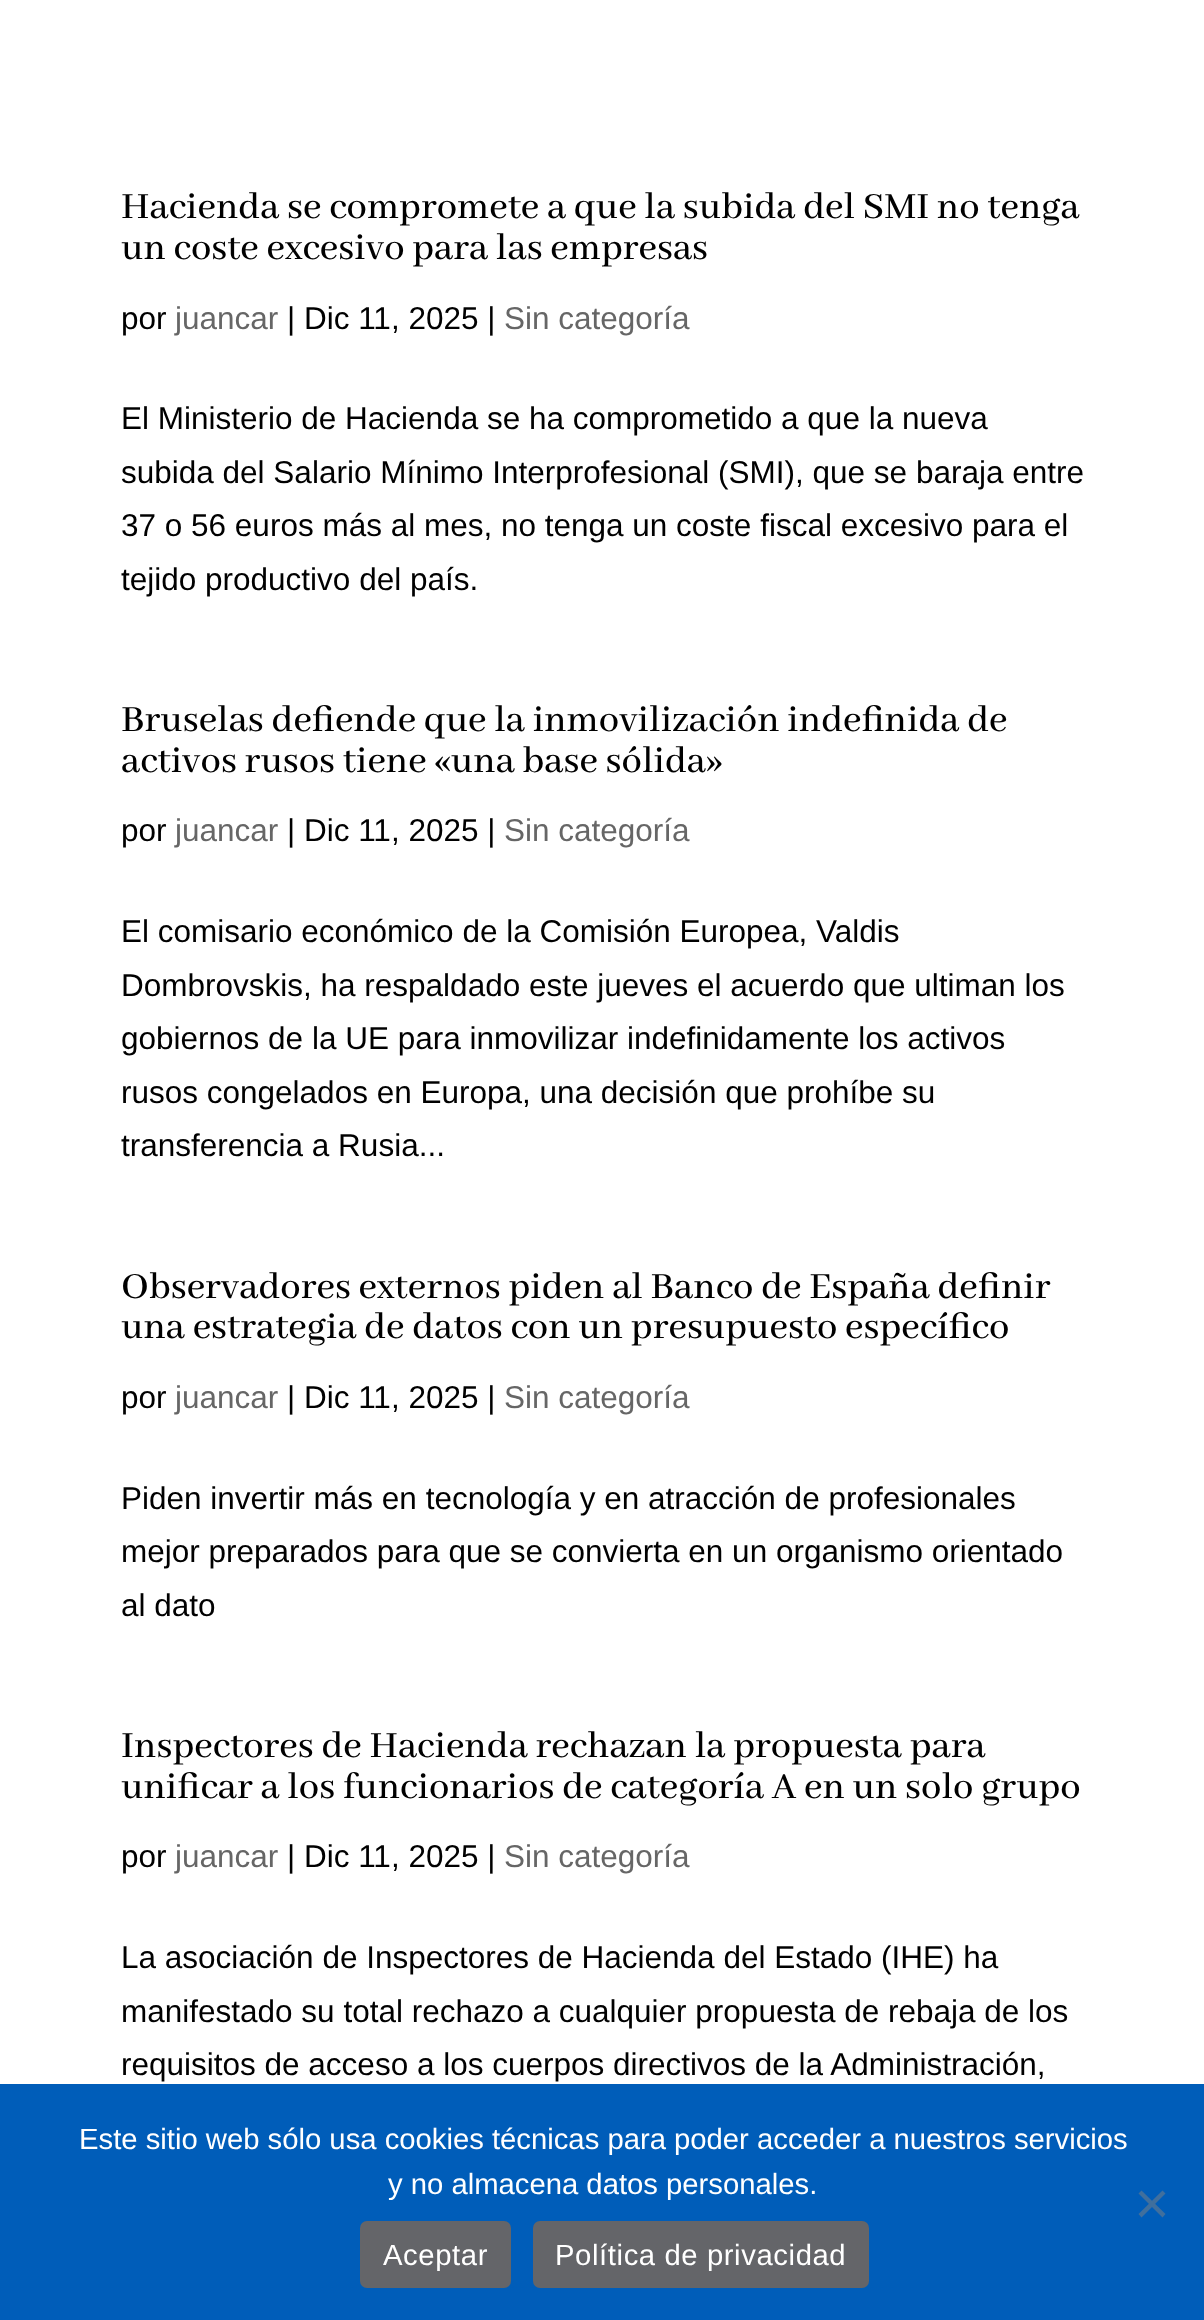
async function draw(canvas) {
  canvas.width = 1204;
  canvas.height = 2320;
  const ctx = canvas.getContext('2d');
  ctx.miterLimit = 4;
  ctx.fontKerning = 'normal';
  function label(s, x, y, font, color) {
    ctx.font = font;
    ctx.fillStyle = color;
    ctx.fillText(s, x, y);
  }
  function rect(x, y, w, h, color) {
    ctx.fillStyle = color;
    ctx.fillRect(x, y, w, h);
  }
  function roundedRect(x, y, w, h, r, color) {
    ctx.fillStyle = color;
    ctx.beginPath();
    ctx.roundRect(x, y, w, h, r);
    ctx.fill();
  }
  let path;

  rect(0, 0, 1204, 2320, '#fff');
  label('Hacienda se compromete a que la subida del SMI no tenga', 121, 218, '500 40.5px Abhaya Libre Medium', '#000');
  label('un coste excesivo para las empresas', 121, 259, '500 40.5px Abhaya Libre Medium', '#000');
  label('por', 121, 329, '31.5px Liberation Sans', '#000');
  label('juancar', 175, 329, '31.5px Liberation Sans', '#666');
  label('| Dic 11, 2025 |', 287, 329, '31.5px Liberation Sans', '#000');
  label('Sin categoría', 504, 329, '31.5px Liberation Sans', '#666');
  label('El Ministerio de Hacienda se ha comprometido a que la nueva', 121, 429, '31.5px Liberation Sans', '#000');
  label('subida del Salario Mínimo Interprofesional (SMI), que se baraja entre', 121, 483, '31.5px Liberation Sans', '#000');
  label('37 o 56 euros más al mes, no tenga un coste fiscal excesivo para el', 121, 536, '31.5px Liberation Sans', '#000');
  label('tejido productivo del país.', 121, 590, '31.5px Liberation Sans', '#000');
  label('Bruselas defiende que la inmovilización indefinida de', 121, 731, '500 40.5px Abhaya Libre Medium', '#000');
  label('activos rusos tiene «una base sólida»', 121, 772, '500 40.5px Abhaya Libre Medium', '#000');
  label('por', 121, 841, '31.5px Liberation Sans', '#000');
  label('juancar', 175, 841, '31.5px Liberation Sans', '#666');
  label('| Dic 11, 2025 |', 287, 841, '31.5px Liberation Sans', '#000');
  label('Sin categoría', 504, 841, '31.5px Liberation Sans', '#666');
  label('El comisario económico de la Comisión Europea, Valdis', 121, 942, '31.5px Liberation Sans', '#000');
  label('Dombrovskis, ha respaldado este jueves el acuerdo que ultiman los', 121, 996, '31.5px Liberation Sans', '#000');
  label('gobiernos de la UE para inmovilizar indefinidamente los activos', 121, 1049, '31.5px Liberation Sans', '#000');
  label('rusos congelados en Europa, una decisión que prohíbe su', 121, 1103, '31.5px Liberation Sans', '#000');
  label('transferencia a Rusia...', 121, 1156, '31.5px Liberation Sans', '#000');
  label('Observadores externos piden al Banco de España definir', 121, 1298, '500 40.5px Abhaya Libre Medium', '#000');
  label('una estrategia de datos con un presupuesto específico', 121, 1338, '500 40.5px Abhaya Libre Medium', '#000');
  label('por', 121, 1408, '31.5px Liberation Sans', '#000');
  label('juancar', 175, 1408, '31.5px Liberation Sans', '#666');
  label('| Dic 11, 2025 |', 287, 1408, '31.5px Liberation Sans', '#000');
  label('Sin categoría', 504, 1408, '31.5px Liberation Sans', '#666');
  label('Piden invertir más en tecnología y en atracción de profesionales', 121, 1509, '31.5px Liberation Sans', '#000');
  label('mejor preparados para que se convierta en un organismo orientado', 121, 1562, '31.5px Liberation Sans', '#000');
  label('al dato', 121, 1616, '31.5px Liberation Sans', '#000');
  label('Inspectores de Hacienda rechazan la propuesta para', 121, 1757, '500 40.5px Abhaya Libre Medium', '#000');
  label('unificar a los funcionarios de categoría A en un solo grupo', 121, 1798, '500 40.5px Abhaya Libre Medium', '#000');
  label('por', 121, 1867, '31.5px Liberation Sans', '#000');
  label('juancar', 175, 1867, '31.5px Liberation Sans', '#666');
  label('| Dic 11, 2025 |', 287, 1867, '31.5px Liberation Sans', '#000');
  label('Sin categoría', 504, 1867, '31.5px Liberation Sans', '#666');
  label('La asociación de Inspectores de Hacienda del Estado (IHE) ha', 121, 1968, '31.5px Liberation Sans', '#000');
  label('manifestado su total rechazo a cualquier propuesta de rebaja de los', 121, 2022, '31.5px Liberation Sans', '#000');
  label('requisitos de acceso a los cuerpos directivos de la Administración,', 121, 2075, '31.5px Liberation Sans', '#000');
  rect(0, 2084, 1204, 236, '#005db9');
  label('Este sitio web sólo usa cookies técnicas para poder acceder a nuestros servicios', 79, 2149, '29.25px Liberation Sans', '#fff');
  label('y no almacena datos personales.', 388, 2194, '29.25px Liberation Sans', '#fff');
  ctx.fillStyle = '#406f9d';
  path = new Path2D('M1162.5 2190.5L1165.5 2193.5L1141.5 2217.5L1138.5 2214Z');
  ctx.fill(path);
  path = new Path2D('M1138.5 2193.5L1141.5 2190.5L1165.5 2214L1162.5 2217.5Z');
  ctx.fill(path);
  roundedRect(360, 2221, 151, 67, 7, '#646569');
  ctx.letterSpacing = '0.6px';
  label('Aceptar', 383, 2265, '29.25px Liberation Sans', '#fff');
  roundedRect(533, 2221, 336, 67, 7, '#646569');
  label('Política de privacidad', 555, 2265, '29.25px Liberation Sans', '#fff');
}

draw(document.querySelector('canvas'));
